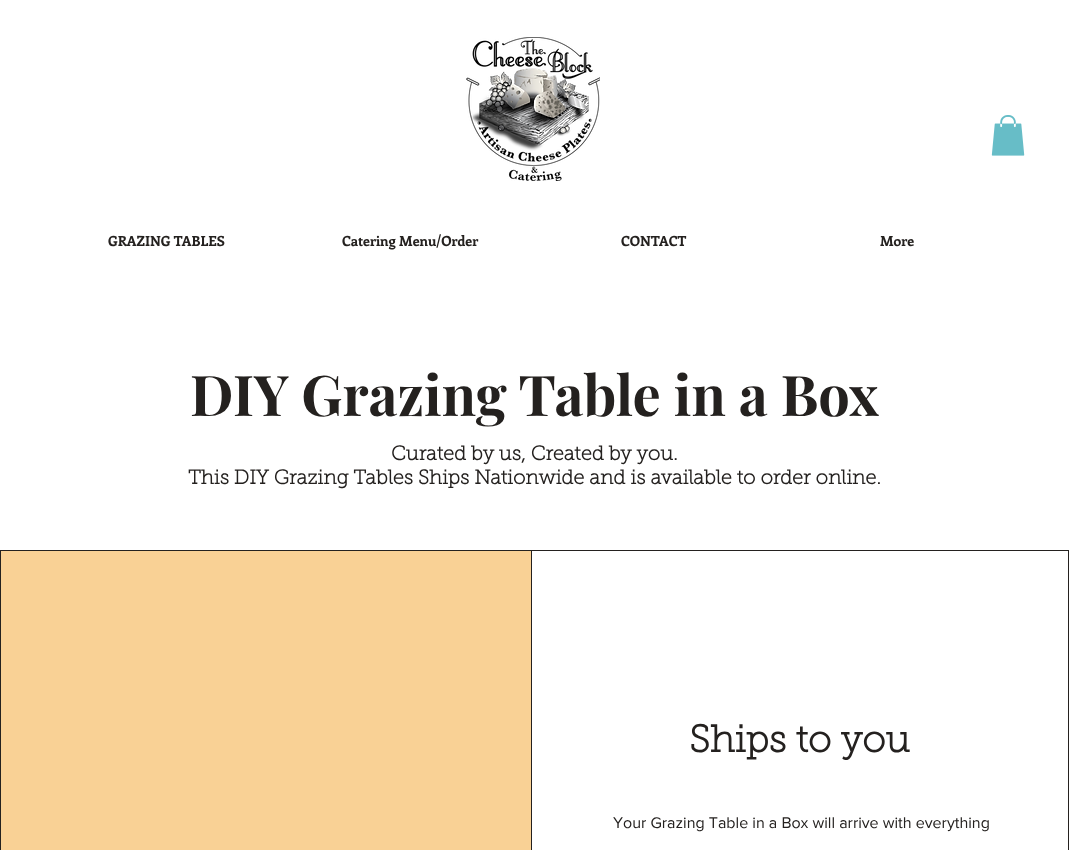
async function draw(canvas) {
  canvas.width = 1069;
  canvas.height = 850;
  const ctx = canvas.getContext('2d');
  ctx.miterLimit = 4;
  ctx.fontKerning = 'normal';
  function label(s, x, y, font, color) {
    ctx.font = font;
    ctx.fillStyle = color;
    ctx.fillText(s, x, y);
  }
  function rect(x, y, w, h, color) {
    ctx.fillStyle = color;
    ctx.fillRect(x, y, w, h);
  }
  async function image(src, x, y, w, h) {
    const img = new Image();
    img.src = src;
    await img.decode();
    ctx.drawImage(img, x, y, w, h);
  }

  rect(0, 0, 1069, 850, '#fff');
  await image('assets/img1.png', 466, 37, 134, 144);
  await image('assets/img2.png', 991, 115, 34, 41);
  label('GRAZING TABLES', 108, 246, 'bold 14px Enriqueta', '#24211f');
  label('Catering Menu/Order', 342, 246, 'bold 14px Enriqueta', '#24211f');
  label('CONTACT', 621, 246, 'bold 14px Enriqueta', '#24211f');
  label('More', 880, 246, 'bold 14px Enriqueta', '#24211f');
  label('DIY Grazing Table in a Box', 190, 416, 'bold 56px Playfair Display', '#24211f');
  label('Curated by us, Created by you.', 391, 460, 'bold 20px "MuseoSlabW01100"', '#24211f');
  label('This DIY Grazing Tables Ships Nationwide and is available to order online.', 188, 484, 'bold 20px "MuseoSlabW01100"', '#24211f');
  rect(0, 550, 1069, 300, '#24211f');
  rect(1, 551, 530, 299, '#f9d195');
  rect(532, 551, 536, 299, '#fff');
  label('Ships to you', 689, 752, 'bold 38px "MuseoSlabW01100"', '#24211f');
  label('Your Grazing Table in a Box will arrive with everything', 613, 828, '16px "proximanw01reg"', '#24211f');
}

draw(document.querySelector('canvas'));
